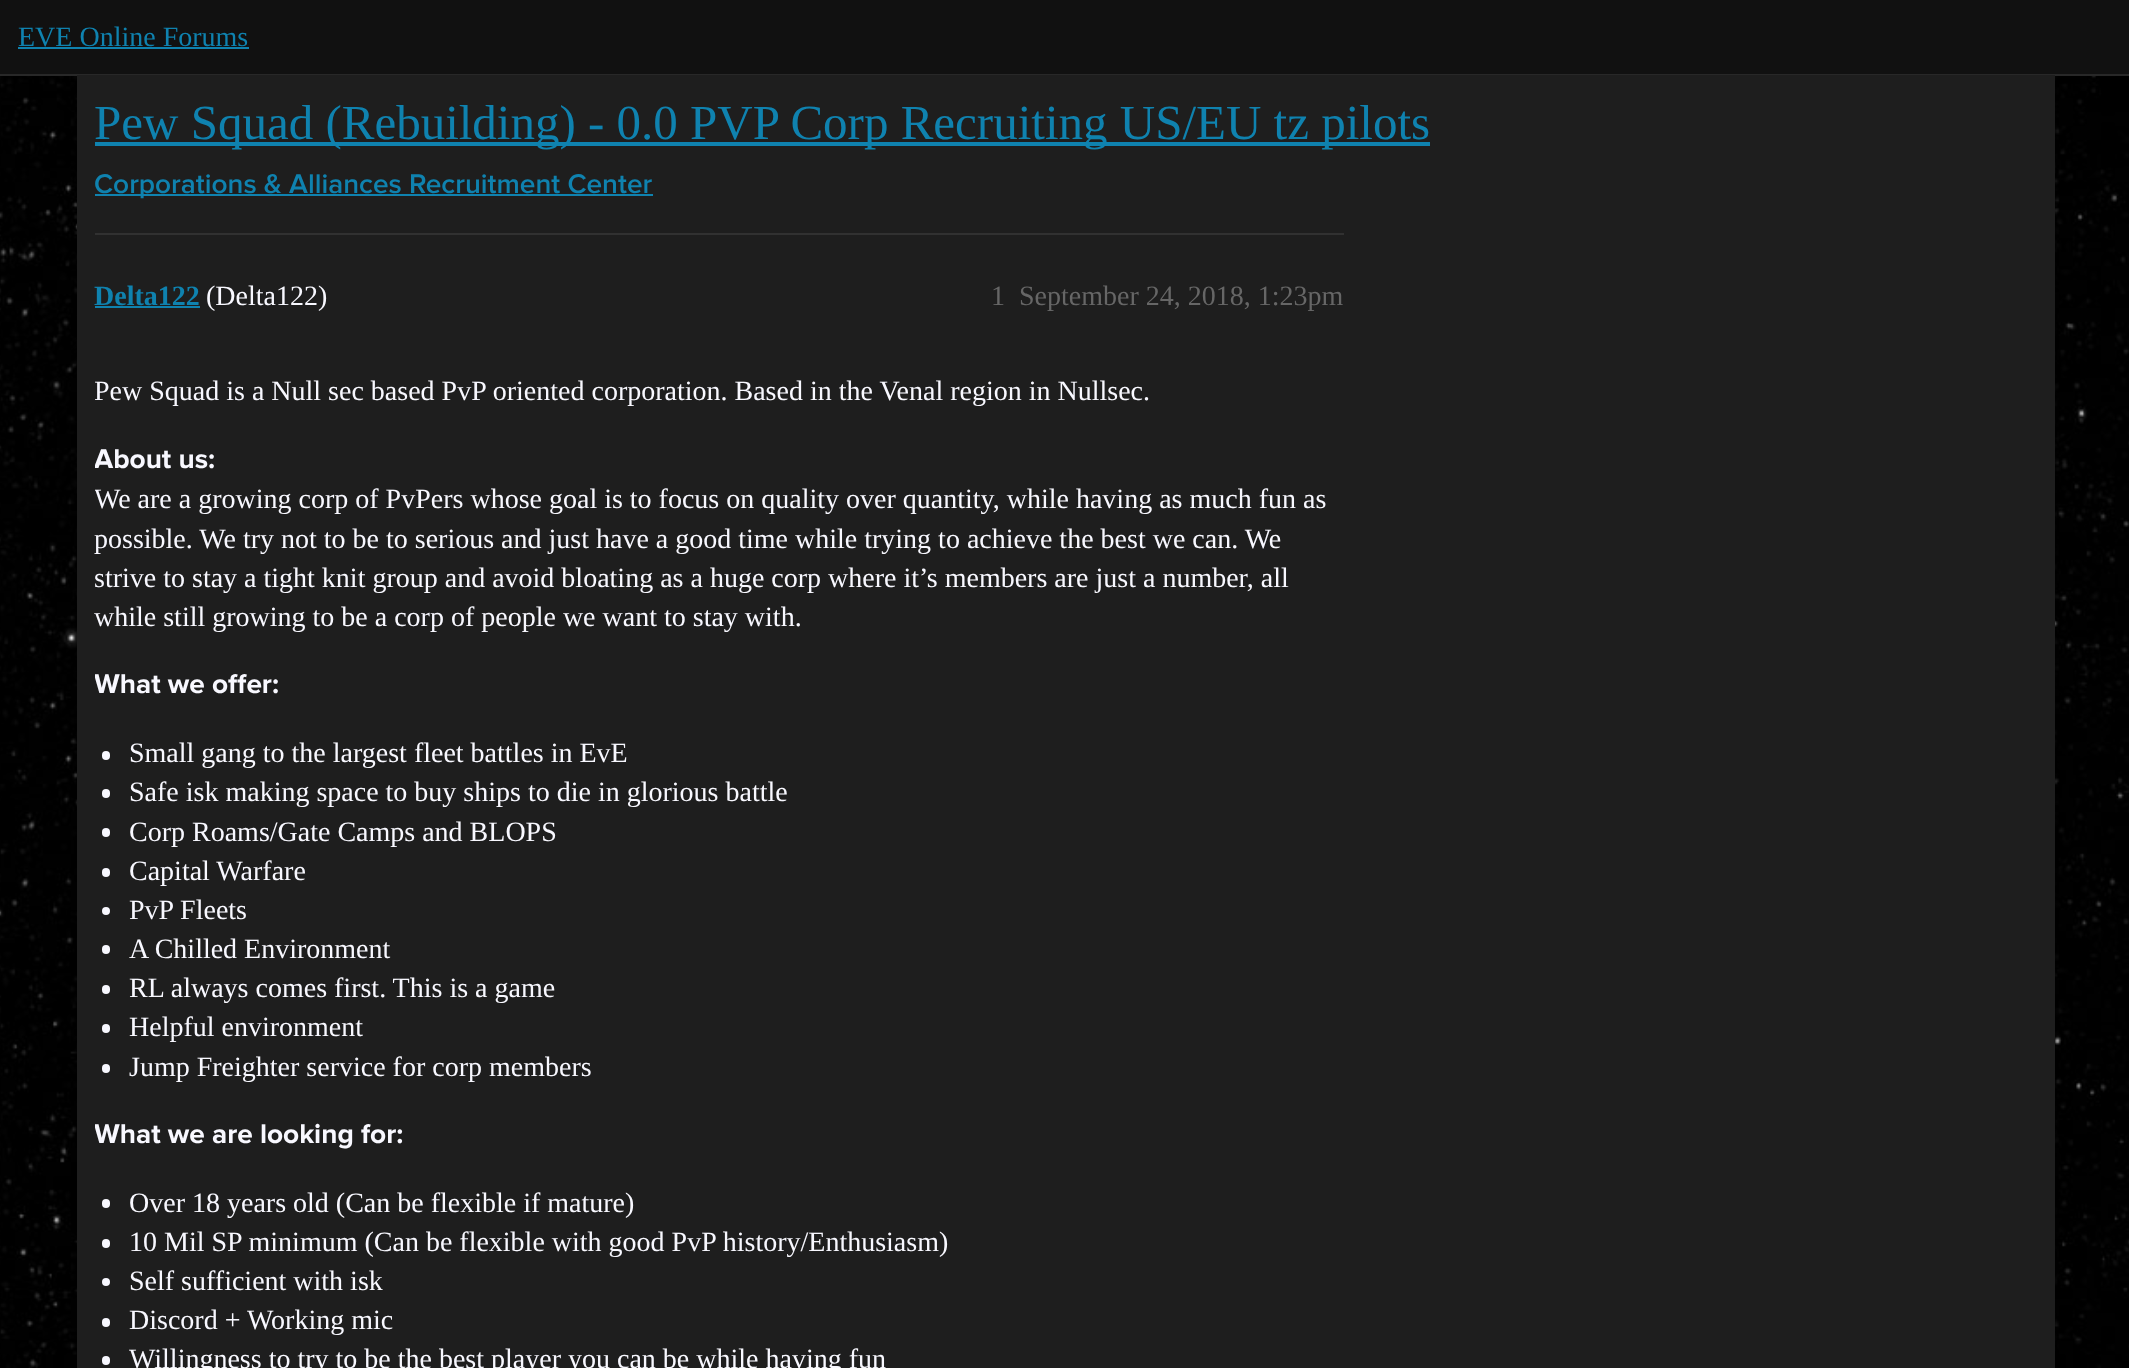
async function draw(canvas) {
  canvas.width = 2129;
  canvas.height = 1368;
  const ctx = canvas.getContext('2d');
  ctx.miterLimit = 4;
  ctx.fontKerning = 'normal';
  function label(s, x, y, font, color) {
    ctx.font = font;
    ctx.fillStyle = color;
    ctx.fillText(s, x, y);
  }
  function rect(x, y, w, h, color) {
    ctx.fillStyle = color;
    ctx.fillRect(x, y, w, h);
  }
  function roundedRect(x, y, w, h, r, color) {
    ctx.fillStyle = color;
    ctx.beginPath();
    ctx.roundRect(x, y, w, h, r);
    ctx.fill();
  }
  async function image(src, x, y, w, h) {
    const img = new Image();
    img.src = src;
    await img.decode();
    ctx.drawImage(img, x, y, w, h);
  }

  rect(0, 0, 2129, 1368, '#fff');
  await image('assets/img1.png', 0, 76, 2129, 1292);
  rect(0, 0, 2129, 74, '#111');
  rect(0, 74, 2129, 2, '#282828');
  label('EVE Online Forums', 18, 46, '28px Liberation Serif', '#0f82af');
  rect(18, 47, 231, 2, '#0f82af');
  rect(77, 75, 1978, 1293, '#1e1e1e');
  rect(95, 142, 1335, 4, '#0f82af');
  label('Pew Squad (Rebuilding) - 0.0 PVP Corp Recruiting US/EU tz pilots', 94, 139, '49px Liberation Serif', '#0f82af');
  rect(95, 194, 558, 2, '#0f82af');
  label('Corporations & Alliances Recruitment Center', 94, 193, '600 28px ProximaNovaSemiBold', '#0f82af');
  rect(95, 233, 1249, 2, '#313131');
  label('Delta122', 94, 305, 'bold 28px Liberation Serif', '#0f82af');
  rect(95, 306, 105, 2, '#0f82af');
  label('(Delta122)', 206, 305, '28px Liberation Serif', '#f8f8ff');
  label('1', 991, 305, '28px Liberation Serif', '#666');
  label('September 24, 2018, 1:23pm', 1019, 305, '28px Liberation Serif', '#666');
  ctx.save();
  ctx.beginPath();
  ctx.rect(95, 345, 1249, 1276);
  ctx.clip();
  label('Pew Squad is a Null sec based PvP oriented corporation. Based in the Venal region in Nullsec.', 94, 400, '28px Liberation Serif', '#f8f8ff');
  label('About us:', 94, 468, 'bold 28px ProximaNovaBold', '#f8f8ff');
  label('We are a growing corp of PvPers whose goal is to focus on quality over quantity, while having as much fun as', 94, 508, '28px Liberation Serif', '#f8f8ff');
  ctx.restore();
  label('possible. We try not to be to serious and just have a good time while trying to achieve the best we can. We', 94, 548, '28px Liberation Serif', '#f8f8ff');
  ctx.save();
  ctx.beginPath();
  ctx.rect(95, 345, 1249, 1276);
  ctx.clip();
  label('strive to stay a tight knit group and avoid bloating as a huge corp where it’s members are just a number, all', 94, 587, '28px Liberation Serif', '#f8f8ff');
  ctx.restore();
  label('while still growing to be a corp of people we want to stay with.', 94, 626, '28px Liberation Serif', '#f8f8ff');
  ctx.save();
  ctx.beginPath();
  ctx.rect(95, 345, 1249, 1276);
  ctx.clip();
  label('What we offer:', 94, 693, 'bold 28px ProximaNovaBold', '#f8f8ff');
  ctx.restore();
  roundedRect(102, 751, 8, 9, 4, '#f8f8ff');
  label('Small gang to the largest fleet battles in EvE', 129, 762, '28px Liberation Serif', '#f8f8ff');
  roundedRect(102, 789, 8, 9, 4, '#f8f8ff');
  label('Safe isk making space to buy ships to die in glorious battle', 129, 801, '28px Liberation Serif', '#f8f8ff');
  roundedRect(102, 828, 8, 9, 4, '#f8f8ff');
  label('Corp Roams/Gate Camps and BLOPS', 129, 841, '28px Liberation Serif', '#f8f8ff');
  roundedRect(102, 868, 8, 9, 4, '#f8f8ff');
  label('Capital Warfare', 129, 880, '28px Liberation Serif', '#f8f8ff');
  ctx.beginPath();
  ctx.arc(106, 911, 4, 0, 2 * Math.PI);
  ctx.fill();
  label('PvP Fleets', 129, 919, '28px Liberation Serif', '#f8f8ff');
  roundedRect(102, 945, 8, 9, 4, '#f8f8ff');
  label('A Chilled Environment', 129, 958, '28px Liberation Serif', '#f8f8ff');
  roundedRect(102, 985, 8, 9, 4, '#f8f8ff');
  label('RL always comes first. This is a game', 129, 997, '28px Liberation Serif', '#f8f8ff');
  roundedRect(102, 1024, 8, 9, 4, '#f8f8ff');
  label('Helpful environment', 129, 1036, '28px Liberation Serif', '#f8f8ff');
  roundedRect(102, 1064, 8, 9, 4, '#f8f8ff');
  label('Jump Freighter service for corp members', 129, 1076, '28px Liberation Serif', '#f8f8ff');
  ctx.save();
  ctx.beginPath();
  ctx.rect(95, 345, 1249, 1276);
  ctx.clip();
  label('What we are looking for:', 94, 1143, 'bold 28px ProximaNovaBold', '#f8f8ff');
  ctx.restore();
  roundedRect(102, 1199, 8, 9, 4, '#f8f8ff');
  label('Over 18 years old (Can be flexible if mature)', 129, 1212, '28px Liberation Serif', '#f8f8ff');
  roundedRect(102, 1239, 8, 9, 4, '#f8f8ff');
  label('10 Mil SP minimum (Can be flexible with good PvP history/Enthusiasm)', 129, 1251, '28px Liberation Serif', '#f8f8ff');
  ctx.beginPath();
  ctx.arc(106, 1282, 4, 0, 2 * Math.PI);
  ctx.fill();
  label('Self sufficient with isk', 129, 1290, '28px Liberation Serif', '#f8f8ff');
  roundedRect(102, 1318, 8, 9, 4, '#f8f8ff');
  label('Discord + Working mic', 129, 1329, '28px Liberation Serif', '#f8f8ff');
  roundedRect(102, 1356, 8, 9, 4, '#f8f8ff');
  label('Willingness to try to be the best player you can be while having fun', 129, 1368, '28px Liberation Serif', '#f8f8ff');
}

draw(document.querySelector('canvas'));
